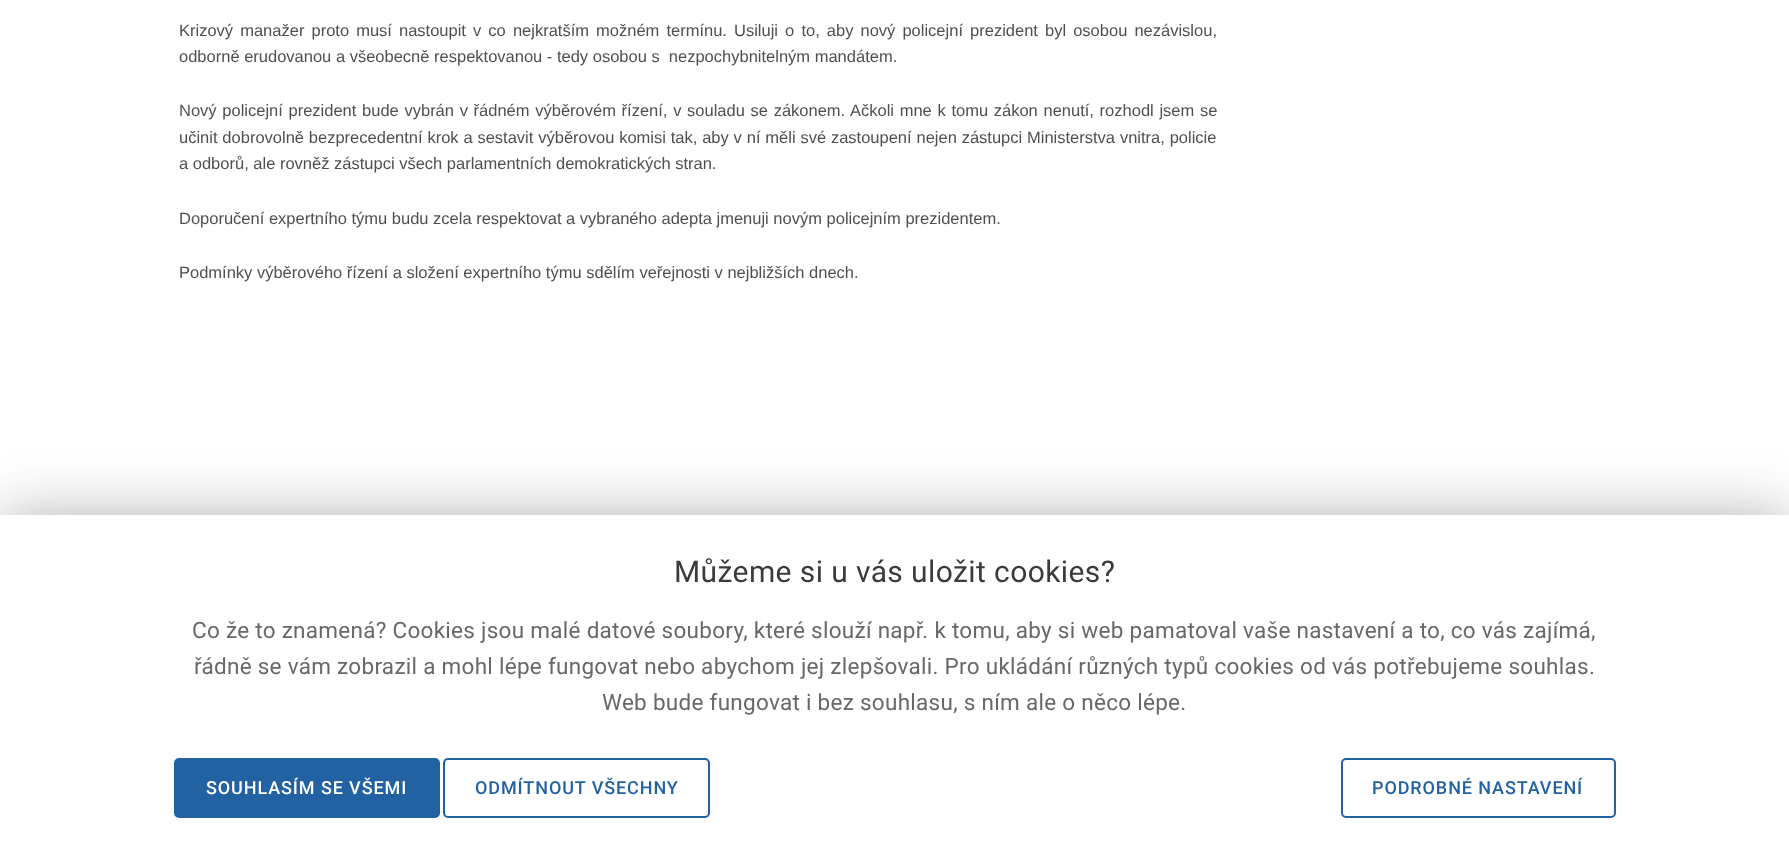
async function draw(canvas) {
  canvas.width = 1789;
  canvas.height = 847;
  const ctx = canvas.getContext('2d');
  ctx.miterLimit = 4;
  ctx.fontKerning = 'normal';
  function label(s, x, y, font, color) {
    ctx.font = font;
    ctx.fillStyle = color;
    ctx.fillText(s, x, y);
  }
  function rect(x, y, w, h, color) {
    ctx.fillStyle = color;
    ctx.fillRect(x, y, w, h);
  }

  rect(0, 0, 1789, 847, '#fff');
  ctx.wordSpacing = '2.5px';
  label('Krizový manažer proto musí nastoupit v co nejkratším možném termínu. Usiluji o to, aby nový policejní prezident byl osobou nezávislou,', 179, 36, '16.5px Liberation Sans', '#4f4f4f');
  ctx.wordSpacing = '0px';
  label('odborně erudovanou a všeobecně respektovanou - tedy osobou s  nezpochybnitelným mandátem.', 179, 62, '16.5px Liberation Sans', '#4f4f4f');
  ctx.wordSpacing = '1.1px';
  label('Nový policejní prezident bude vybrán v řádném výběrovém řízení, v souladu se zákonem. Ačkoli mne k tomu zákon nenutí, rozhodl jsem se', 179, 116, '16.5px Liberation Sans', '#4f4f4f');
  ctx.wordSpacing = '0.25px';
  label('učinit dobrovolně bezprecedentní krok a sestavit výběrovou komisi tak, aby v ní měli své zastoupení nejen zástupci Ministerstva vnitra, policie', 179, 143, '16.5px Liberation Sans', '#4f4f4f');
  ctx.wordSpacing = '0px';
  label('a odborů, ale rovněž zástupci všech parlamentních demokratických stran.', 179, 169, '16.5px Liberation Sans', '#4f4f4f');
  label('Doporučení expertního týmu budu zcela respektovat a vybraného adepta jmenuji novým policejním prezidentem.', 179, 224, '16.5px Liberation Sans', '#4f4f4f');
  label('Podmínky výběrového řízení a složení expertního týmu sdělím veřejnosti v nejbližších dnech.', 179, 278, '16.5px Liberation Sans', '#4f4f4f');
  ctx.fillStyle = '#3b3b3b66';
  ctx.filter = 'blur(30px)';
  ctx.beginPath();
  ctx.rect(0, 516, 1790, 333);
  ctx.fill();
  ctx.filter = 'none';
  rect(0, 515, 1789, 332, '#fff');
  ctx.letterSpacing = '0.4px';
  label('Můžeme si u vás uložit cookies?', 674, 582, '30px Roboto', '#3b3b3b');
  ctx.letterSpacing = '0.28px';
  label('Co že to znamená? Cookies jsou malé datové soubory, které slouží např. k tomu, aby si web pamatoval vaše nastavení a to, co vás zajímá,', 192, 638, '22.5px Roboto', '#686868');
  label('řádně se vám zobrazil a mohl lépe fungovat nebo abychom jej zlepšovali. Pro ukládání různých typů cookies od vás potřebujeme souhlas.', 194, 674, '22.5px Roboto', '#686868');
  label('Web bude fungovat i bez souhlasu, s ním ale o něco lépe.', 602, 710, '22.5px Roboto', '#686868');
  ctx.fillStyle = '#2362a2';
  ctx.beginPath();
  ctx.roundRect(175, 759, 264, 58, 4);
  ctx.fill();
  ctx.strokeStyle = '#2362a2';
  ctx.lineWidth = 2;
  ctx.stroke();
  ctx.letterSpacing = '0.9px';
  label('SOUHLASÍM SE VŠEMI', 206, 794, '500 18px Roboto', '#fff');
  ctx.beginPath();
  ctx.roundRect(444, 759, 265, 58, 4);
  ctx.stroke();
  label('ODMÍTNOUT VŠECHNY', 475, 794, '500 18px Roboto', '#2362a2');
  ctx.beginPath();
  ctx.roundRect(1342, 759, 273, 58, 4);
  ctx.stroke();
  label('PODROBNÉ NASTAVENÍ', 1372, 794, '500 18px Roboto', '#2362a2');
}

draw(document.querySelector('canvas'));
